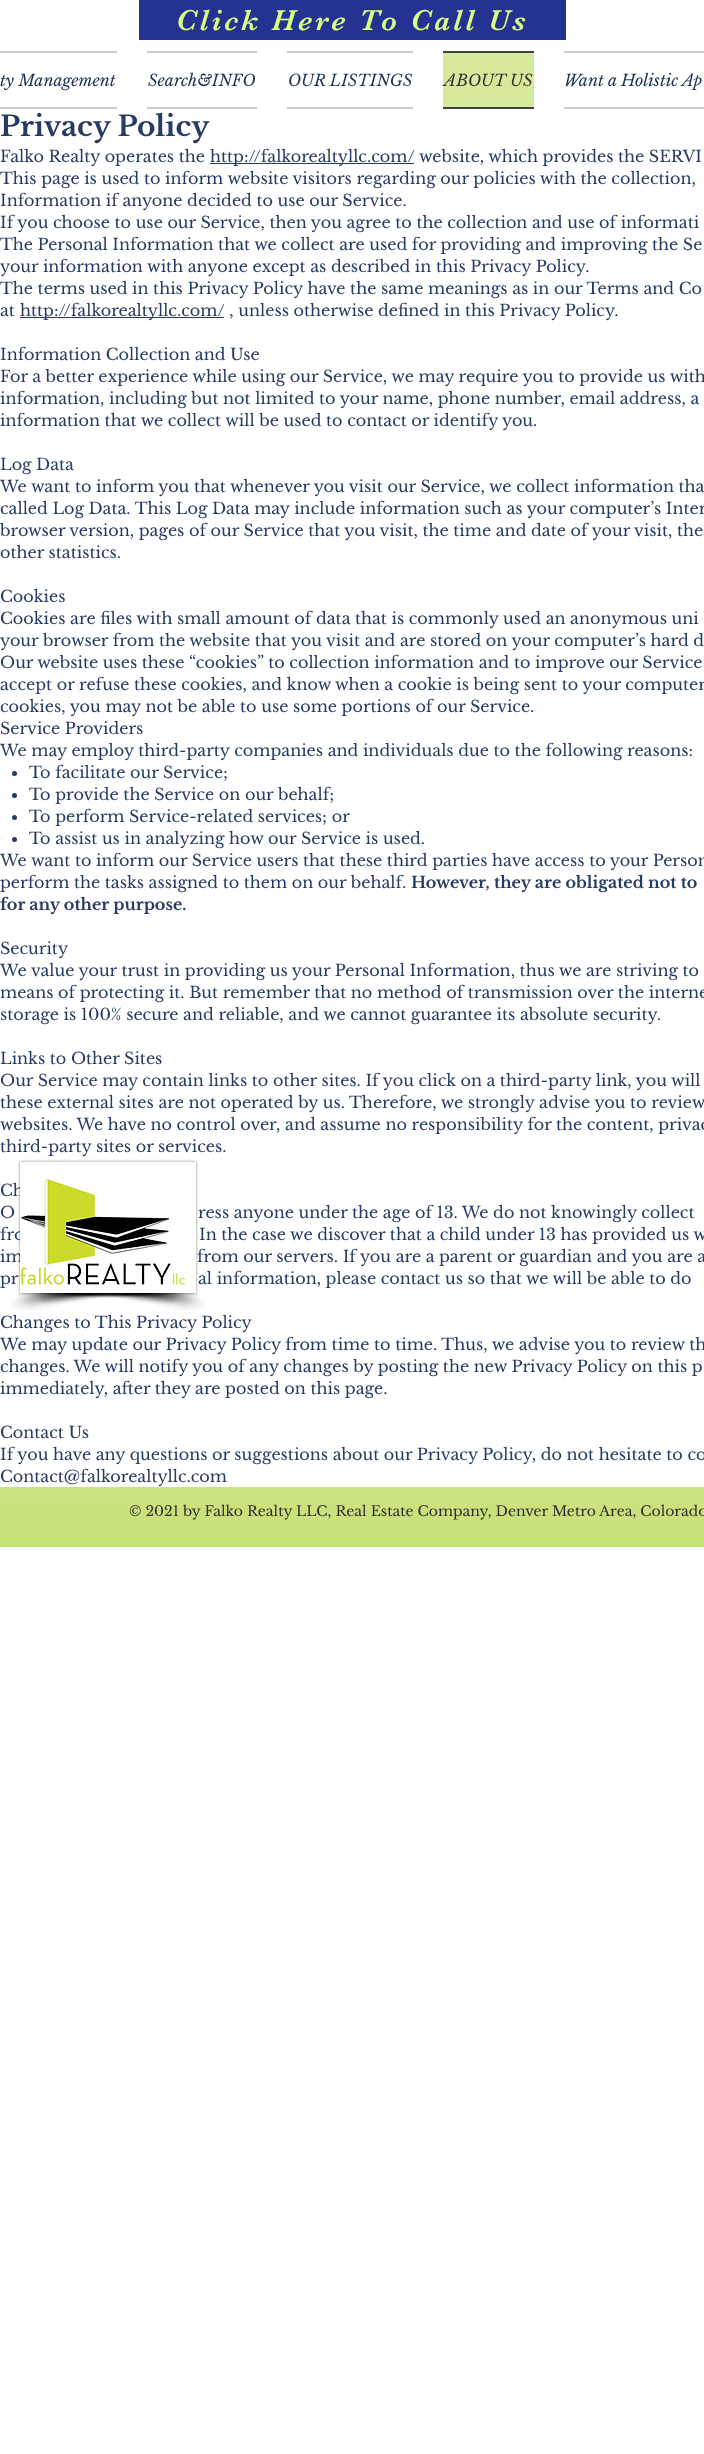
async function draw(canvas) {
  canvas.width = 704;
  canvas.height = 2454;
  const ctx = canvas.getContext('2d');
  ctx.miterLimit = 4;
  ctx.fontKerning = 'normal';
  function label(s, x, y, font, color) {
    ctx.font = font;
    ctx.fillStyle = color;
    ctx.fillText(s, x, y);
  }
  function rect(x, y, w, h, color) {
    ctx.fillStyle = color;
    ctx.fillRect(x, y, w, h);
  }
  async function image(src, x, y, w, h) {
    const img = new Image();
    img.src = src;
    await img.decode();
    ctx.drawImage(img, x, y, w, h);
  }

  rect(0, 0, 704, 2454, '#fff');
  rect(139, 0, 427, 40, '#243391');
  ctx.letterSpacing = '3px';
  label('Click Here To Call Us', 176, 30, '30px "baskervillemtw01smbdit"', '#daff82');
  rect(0, 51, 117, 2, '#ccc');
  rect(0, 107, 117, 2, '#ccc');
  ctx.letterSpacing = '0px';
  label('ty Management', 0, 86, 'italic 16px Libre Baskerville', '#1e3054');
  rect(147, 51, 110, 2, '#ccc');
  rect(147, 107, 110, 2, '#ccc');
  label('Search&INFO', 148, 86, 'italic 16px Libre Baskerville', '#1e3054');
  rect(287, 51, 126, 2, '#ccc');
  rect(287, 107, 126, 2, '#ccc');
  label('OUR LISTINGS', 288, 86, 'italic 16px Libre Baskerville', '#1e3054');
  rect(443, 53, 91, 54, '#d7ea9c');
  rect(443, 51, 91, 2, '#414141');
  rect(443, 107, 91, 2, '#414141');
  label('ABOUT US', 444, 86, 'italic 16px Libre Baskerville', '#2f2e2e');
  rect(564, 51, 140, 2, '#ccc');
  rect(564, 107, 140, 2, '#ccc');
  label('Want a Holistic Ap', 564, 86, 'italic 16px Libre Baskerville', '#1e3054');
  label('Privacy Policy', 0, 136, 'bold 28px Libre Baskerville', '#283b62');
  label('Falko Realty operates the', 0, 162, '16px Libre Baskerville', '#283b62');
  rect(210, 163, 204, 1, '#283b62');
  label('http://falkorealtyllc.com/ website, which provides the SERVI', 210, 162, '16px Libre Baskerville', '#283b62');
  label('This page is used to inform website visitors regarding our policies with the collection,', 0, 184, '16px Libre Baskerville', '#283b62');
  label('Information if anyone decided to use our Service.', 0, 206, '16px Libre Baskerville', '#283b62');
  label('If you choose to use our Service, then you agree to the collection and use of informati', 0, 228, '16px Libre Baskerville', '#283b62');
  label('The Personal Information that we collect are used for providing and improving the Se', 0, 250, '16px Libre Baskerville', '#283b62');
  label('your information with anyone except as described in this Privacy Policy.', 0, 272, '16px Libre Baskerville', '#283b62');
  label('The terms used in this Privacy Policy have the same meanings as in our Terms and Co', 0, 294, '16px Libre Baskerville', '#283b62');
  label('at', 0, 316, '16px Libre Baskerville', '#283b62');
  rect(20, 317, 204, 1, '#283b62');
  label('http://falkorealtyllc.com/ , unless otherwise defined in this Privacy Policy.', 20, 316, '16px Libre Baskerville', '#283b62');
  label('Information Collection and Use', 0, 360, '16px Libre Baskerville', '#283b62');
  label('For a better experience while using our Service, we may require you to provide us with', 0, 382, '16px Libre Baskerville', '#283b62');
  label('information, including but not limited to your name, phone number, email address, a', 0, 404, '16px Libre Baskerville', '#283b62');
  label('information that we collect will be used to contact or identify you.', 0, 426, '16px Libre Baskerville', '#283b62');
  label('Log Data', 0, 470, '16px Libre Baskerville', '#283b62');
  label('We want to inform you that whenever you visit our Service, we collect information tha', 0, 492, '16px Libre Baskerville', '#283b62');
  label('called Log Data. This Log Data may include information such as your computer’s Inter', 0, 514, '16px Libre Baskerville', '#283b62');
  label('browser version, pages of our Service that you visit, the time and date of your visit, the', 0, 536, '16px Libre Baskerville', '#283b62');
  label('other statistics.', 0, 558, '16px Libre Baskerville', '#283b62');
  label('Cookies', 0, 602, '16px Libre Baskerville', '#283b62');
  label('Cookies are files with small amount of data that is commonly used an anonymous uni', 0, 624, '16px Libre Baskerville', '#283b62');
  label('your browser from the website that you visit and are stored on your computer’s hard d', 0, 646, '16px Libre Baskerville', '#283b62');
  label('Our website uses these “cookies” to collection information and to improve our Service', 0, 668, '16px Libre Baskerville', '#283b62');
  label('accept or refuse these cookies, and know when a cookie is being sent to your computer', 0, 690, '16px Libre Baskerville', '#283b62');
  label('cookies, you may not be able to use some portions of our Service.', 0, 712, '16px Libre Baskerville', '#283b62');
  label('Service Providers', 0, 734, '16px Libre Baskerville', '#283b62');
  label('We may employ third-party companies and individuals due to the following reasons:', 0, 756, '16px Libre Baskerville', '#283b62');
  ctx.beginPath();
  ctx.arc(14.5, 773.5, 2.5, 0, 2 * Math.PI);
  ctx.fill();
  label('To facilitate our Service;', 29, 778, '16px Libre Baskerville', '#283b62');
  ctx.beginPath();
  ctx.arc(14.5, 795.5, 2.5, 0, 2 * Math.PI);
  ctx.fill();
  label('To provide the Service on our behalf;', 29, 800, '16px Libre Baskerville', '#283b62');
  ctx.beginPath();
  ctx.arc(14.5, 817.5, 2.5, 0, 2 * Math.PI);
  ctx.fill();
  label('To perform Service-related services; or', 29, 822, '16px Libre Baskerville', '#283b62');
  ctx.beginPath();
  ctx.arc(14.5, 839.5, 2.5, 0, 2 * Math.PI);
  ctx.fill();
  label('To assist us in analyzing how our Service is used.', 29, 844, '16px Libre Baskerville', '#283b62');
  label('We want to inform our Service users that these third parties have access to your Person', 0, 866, '16px Libre Baskerville', '#283b62');
  label('perform the tasks assigned to them on our behalf.', 0, 888, '16px Libre Baskerville', '#283b62');
  label('However, they are obligated not to', 411, 888, 'bold 16px Libre Baskerville', '#283b62');
  label('for any other purpose.', 0, 910, 'bold 16px Libre Baskerville', '#283b62');
  label('Security', 0, 954, '16px Libre Baskerville', '#283b62');
  label('We value your trust in providing us your Personal Information, thus we are striving to', 0, 976, '16px Libre Baskerville', '#283b62');
  label('means of protecting it. But remember that no method of transmission over the interne', 0, 998, '16px Libre Baskerville', '#283b62');
  label('storage is 100% secure and reliable, and we cannot guarantee its absolute security.', 0, 1020, '16px Libre Baskerville', '#283b62');
  label('Links to Other Sites', 0, 1064, '16px Libre Baskerville', '#283b62');
  label('Our Service may contain links to other sites. If you click on a third-party link, you will', 0, 1086, '16px Libre Baskerville', '#283b62');
  label('these external sites are not operated by us. Therefore, we strongly advise you to review', 0, 1108, '16px Libre Baskerville', '#283b62');
  label('websites. We have no control over, and assume no responsibility for the content, privac', 0, 1130, '16px Libre Baskerville', '#283b62');
  label('third-party sites or services.', 0, 1152, '16px Libre Baskerville', '#283b62');
  label('Ch', 0, 1196, '16px Libre Baskerville', '#283b62');
  label('O', 0, 1218, '16px Libre Baskerville', '#283b62');
  label('ress anyone under the age of 13. We do not knowingly collect', 198, 1218, '16px Libre Baskerville', '#283b62');
  label('fro', 0, 1240, '16px Libre Baskerville', '#283b62');
  label('In the case we discover that a child under 13 has provided us w', 199, 1240, '16px Libre Baskerville', '#283b62');
  label('im', 0, 1262, '16px Libre Baskerville', '#283b62');
  label('from our servers. If you are a parent or guardian and you are a', 197, 1262, '16px Libre Baskerville', '#283b62');
  label('pr', 0, 1284, '16px Libre Baskerville', '#283b62');
  label('al information, please contact us so that we will be able to do', 198, 1284, '16px Libre Baskerville', '#283b62');
  label('Changes to This Privacy Policy', 0, 1328, '16px Libre Baskerville', '#283b62');
  label('We may update our Privacy Policy from time to time. Thus, we advise you to review th', 0, 1350, '16px Libre Baskerville', '#283b62');
  label('changes. We will notify you of any changes by posting the new Privacy Policy on this p', 0, 1372, '16px Libre Baskerville', '#283b62');
  label('immediately, after they are posted on this page.', 0, 1394, '16px Libre Baskerville', '#283b62');
  label('Contact Us', 0, 1438, '16px Libre Baskerville', '#283b62');
  label('If you have any questions or suggestions about our Privacy Policy, do not hesitate to co', 0, 1460, '16px Libre Baskerville', '#283b62');
  label('Contact@falkorealtyllc.com', 0, 1482, '16px Libre Baskerville', '#283b62');
  ctx.fillStyle = '#00000080';
  ctx.filter = 'blur(1.5px)';
  ctx.beginPath();
  ctx.rect(20, 1162, 176, 131);
  ctx.fill();
  ctx.filter = 'none';
  await image('assets/img1.png', 20, 1162, 176, 131);
  await image('assets/img2.png', 11, 1293, 154, 18);
  await image('assets/img3.png', 80, 1293, 125, 18);
  rect(0, 1487, 704, 60, '#bada55');
  await image('assets/img4.png', 0, 1487, 704, 60);
  label('© 2021 by Falko Realty LLC, Real Estate Company, Denver Metro Area, Colorado', 129, 1516, '14px Libre Baskerville', '#2f2e2e');
}

draw(document.querySelector('canvas'));
